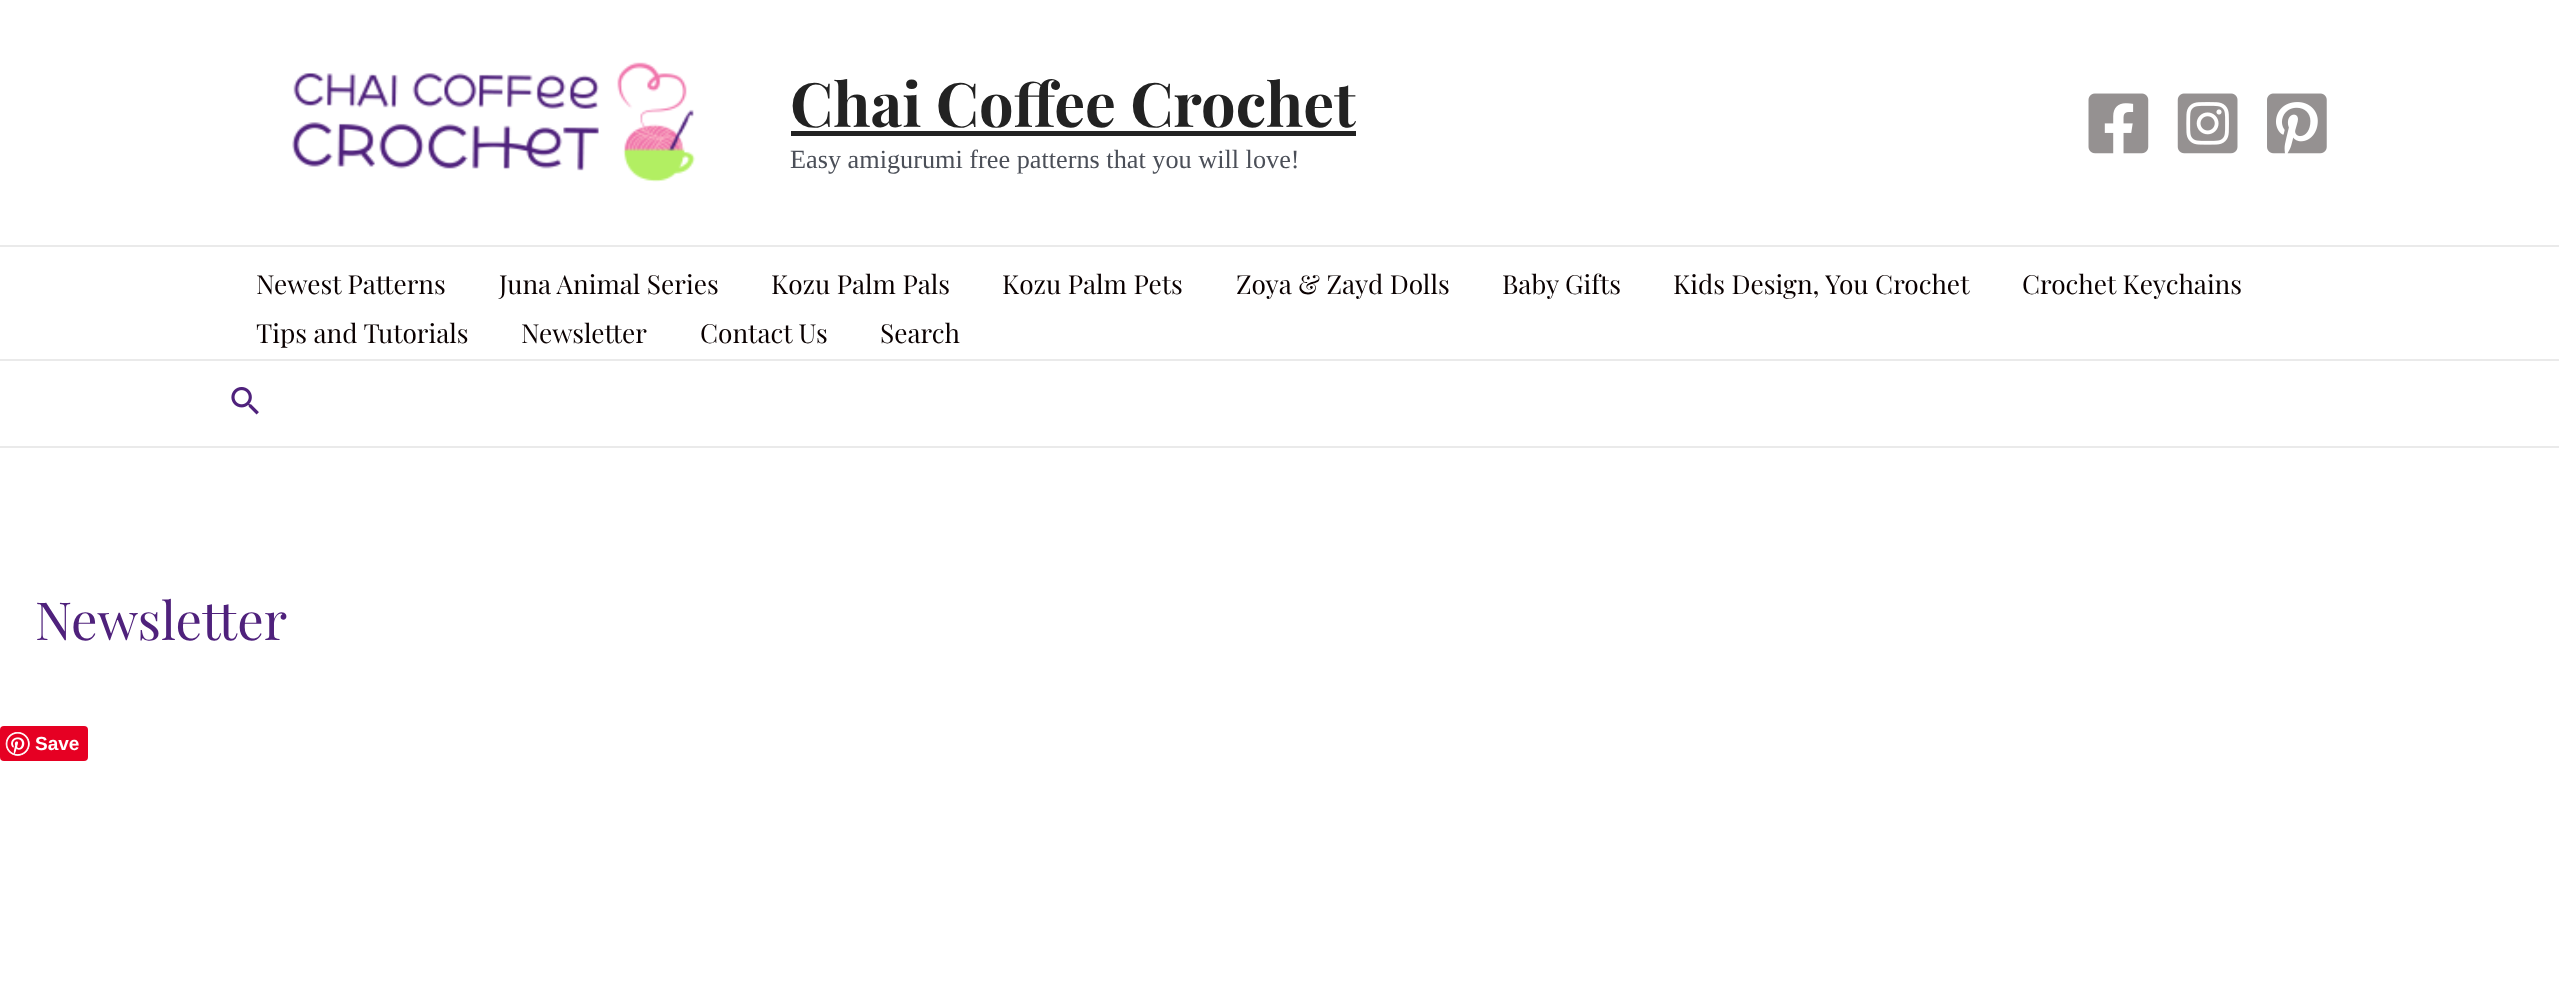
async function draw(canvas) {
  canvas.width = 2559;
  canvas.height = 1005;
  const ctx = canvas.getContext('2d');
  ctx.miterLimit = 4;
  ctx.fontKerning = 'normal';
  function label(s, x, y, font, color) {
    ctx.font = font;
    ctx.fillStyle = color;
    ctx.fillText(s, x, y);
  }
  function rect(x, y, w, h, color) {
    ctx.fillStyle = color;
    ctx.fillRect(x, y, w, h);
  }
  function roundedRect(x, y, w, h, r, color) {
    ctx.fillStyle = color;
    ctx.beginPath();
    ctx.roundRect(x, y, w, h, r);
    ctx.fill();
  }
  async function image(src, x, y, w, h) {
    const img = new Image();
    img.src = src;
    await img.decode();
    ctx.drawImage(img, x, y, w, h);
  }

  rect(0, 0, 2559, 1005, '#fff');
  rect(0, 245, 2559, 2, '#eaeaea');
  await image('assets/img1.png', 292, 62, 404, 120);
  label('Chai Coffee Crochet', 790, 127, 'bold 61.25px Playfair Display', '#222');
  rect(791, 131, 565, 5, '#222');
  label('Easy amigurumi free patterns that you will love!', 790, 168, '26.25px Liberation Serif', '#4b4f58');
  await image('assets/img2.png', 2088, 93, 61, 61);
  await image('assets/img3.png', 2177, 93, 61, 61);
  await image('assets/img4.png', 2267, 93, 60, 61);
  rect(0, 359, 2559, 2, '#eaeaea');
  label('Newest Patterns', 256, 294, '26.25px Playfair Display', '#0a0000');
  label('Juna Animal Series', 499, 294, '26.25px Playfair Display', '#0a0000');
  label('Kozu Palm Pals', 771, 294, '26.25px Playfair Display', '#0a0000');
  label('Kozu Palm Pets', 1002, 294, '26.25px Playfair Display', '#0a0000');
  label('Zoya & Zayd Dolls', 1236, 294, '26.25px Playfair Display', '#0a0000');
  label('Baby Gifts', 1502, 294, '26.25px Playfair Display', '#0a0000');
  label('Kids Design, You Crochet', 1673, 294, '26.25px Playfair Display', '#0a0000');
  label('Crochet Keychains', 2022, 294, '26.25px Playfair Display', '#0a0000');
  label('Tips and Tutorials', 256, 343, '26.25px Playfair Display', '#0a0000');
  label('Newsletter', 521, 343, '26.25px Playfair Display', '#0a0000');
  label('Contact Us', 700, 343, '26.25px Playfair Display', '#0a0000');
  label('Search', 880, 343, '26.25px Playfair Display', '#0a0000');
  rect(0, 446, 2559, 2, '#eaeaea');
  await image('assets/img5.png', 231, 387, 28, 28);
  label('Newsletter', 35, 640, '52.5px Playfair Display', '#4f217c');
  roundedRect(0, 726, 88, 35, 4, '#e60023');
  await image('assets/img6.png', 5, 732, 25, 24);
  label('Save', 35, 750, 'bold 19px Liberation Sans', '#fff');
}

draw(document.querySelector('canvas'));
